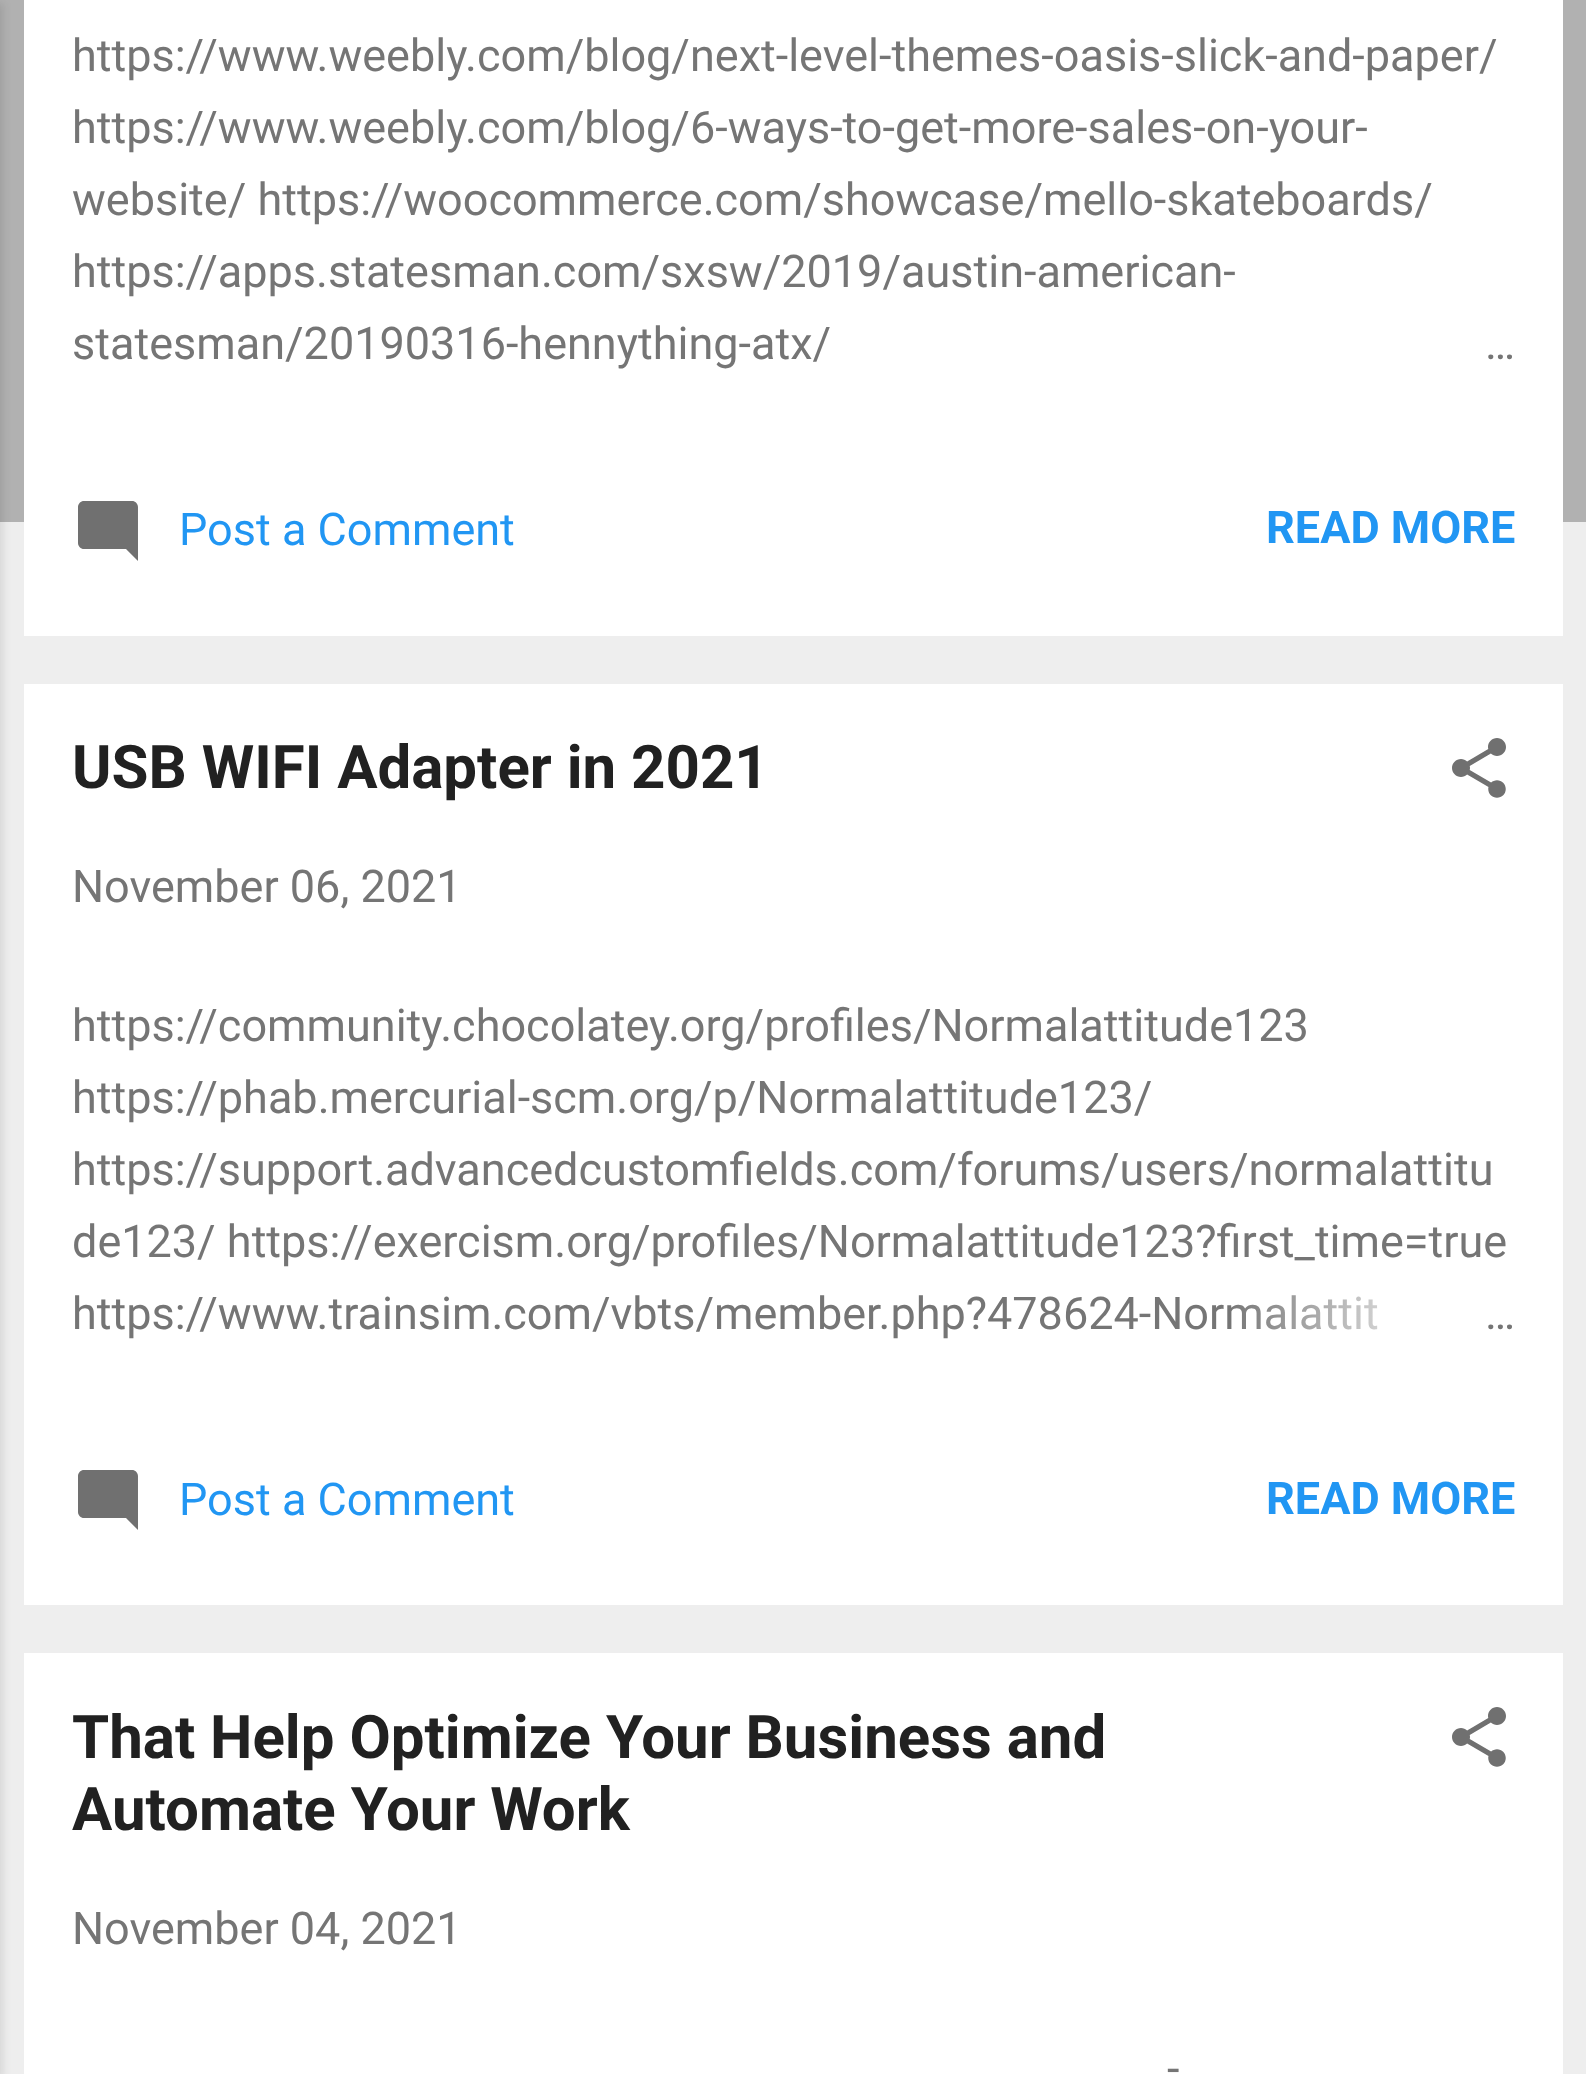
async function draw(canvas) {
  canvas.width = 1586;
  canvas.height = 2074;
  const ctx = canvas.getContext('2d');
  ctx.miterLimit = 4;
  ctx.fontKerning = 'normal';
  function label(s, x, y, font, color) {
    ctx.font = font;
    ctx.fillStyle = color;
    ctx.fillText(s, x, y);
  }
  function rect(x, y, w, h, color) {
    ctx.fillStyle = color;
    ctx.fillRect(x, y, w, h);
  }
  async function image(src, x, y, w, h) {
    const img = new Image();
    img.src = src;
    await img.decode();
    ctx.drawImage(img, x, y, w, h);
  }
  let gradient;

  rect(0, 0, 1586, 2074, '#eee');
  rect(0, 0, 1586, 522, '#b1b1b1');
  ctx.fillStyle = '#0000001a';
  ctx.filter = 'blur(4.5px)';
  ctx.beginPath();
  ctx.rect(-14, 3, 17, 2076);
  ctx.fill();
  ctx.filter = 'none';
  rect(24, 0, 1539, 636, '#fff');
  label('https://www.weebly.com/blog/next-level-themes-oasis-slick-and-paper/', 72, 71, '45px Roboto', '#757575');
  label('https://www.weebly.com/blog/6-ways-to-get-more-sales-on-your-', 72, 143, '45px Roboto', '#757575');
  label('website/ https://woocommerce.com/showcase/mello-skateboards/', 72, 215, '45px Roboto', '#757575');
  label('https://apps.statesman.com/sxsw/2019/austin-american-', 72, 287, '45px Roboto', '#757575');
  label('statesman/20190316-hennything-atx/', 72, 359, '45px Roboto', '#757575');
  label('…', 1485, 359, '45px Roboto', '#757575');
  await image('assets/img1.png', 78, 501, 60, 60);
  label('Post a Comment', 179, 545, '45px Roboto', '#2196f3');
  label('READ MORE', 1266, 543, 'bold 45px Roboto', '#2196f3');
  rect(24, 684, 1539, 921, '#fff');
  label('USB WIFI Adapter in 2021', 72, 788, 'bold 60px Roboto', '#212121');
  await image('assets/img2.png', 1452, 738, 54, 60);
  label('November 06, 2021', 72, 902, '45px Roboto', '#757575');
  label('https://community.chocolatey.org/profiles/Normalattitude123', 72, 1041, '45px Roboto', '#757575');
  label('https://phab.mercurial-scm.org/p/Normalattitude123/', 72, 1113, '45px Roboto', '#757575');
  label('https://support.advancedcustomfields.com/forums/users/normalattitu', 72, 1185, '45px Roboto', '#757575');
  label('de123/ https://exercism.org/profiles/Normalattitude123?first_time=true', 72, 1257, '45px Roboto', '#757575');
  label('https://www.trainsim.com/vbts/member.php?478624-Normalattit', 72, 1329, '45px Roboto', '#757575');
  gradient = ctx.createLinearGradient(1515, 1314, 1227, 1314);
  gradient.addColorStop(0, '#fff');
  gradient.addColorStop(0.2, '#fff');
  gradient.addColorStop(1, '#ffffff00');
  ctx.fillStyle = gradient;
  ctx.fillRect(1232, 1295, 146, 35);
  label('…', 1485, 1329, '45px Roboto', '#757575');
  await image('assets/img1.png', 78, 1470, 60, 60);
  label('Post a Comment', 179, 1515, '45px Roboto', '#2196f3');
  label('READ MORE', 1266, 1514, 'bold 45px Roboto', '#2196f3');
  rect(24, 1653, 1539, 421, '#fff');
  label('That Help Optimize Your Business and', 72, 1758, 'bold 60px Roboto', '#212121');
  label('Automate Your Work', 72, 1830, 'bold 60px Roboto', '#212121');
  await image('assets/img2.png', 1452, 1707, 54, 60);
  label('November 04, 2021', 72, 1944, '45px Roboto', '#757575');
  label('-', 1167, 2084, '45px Roboto', '#757575');
}

draw(document.querySelector('canvas'));
